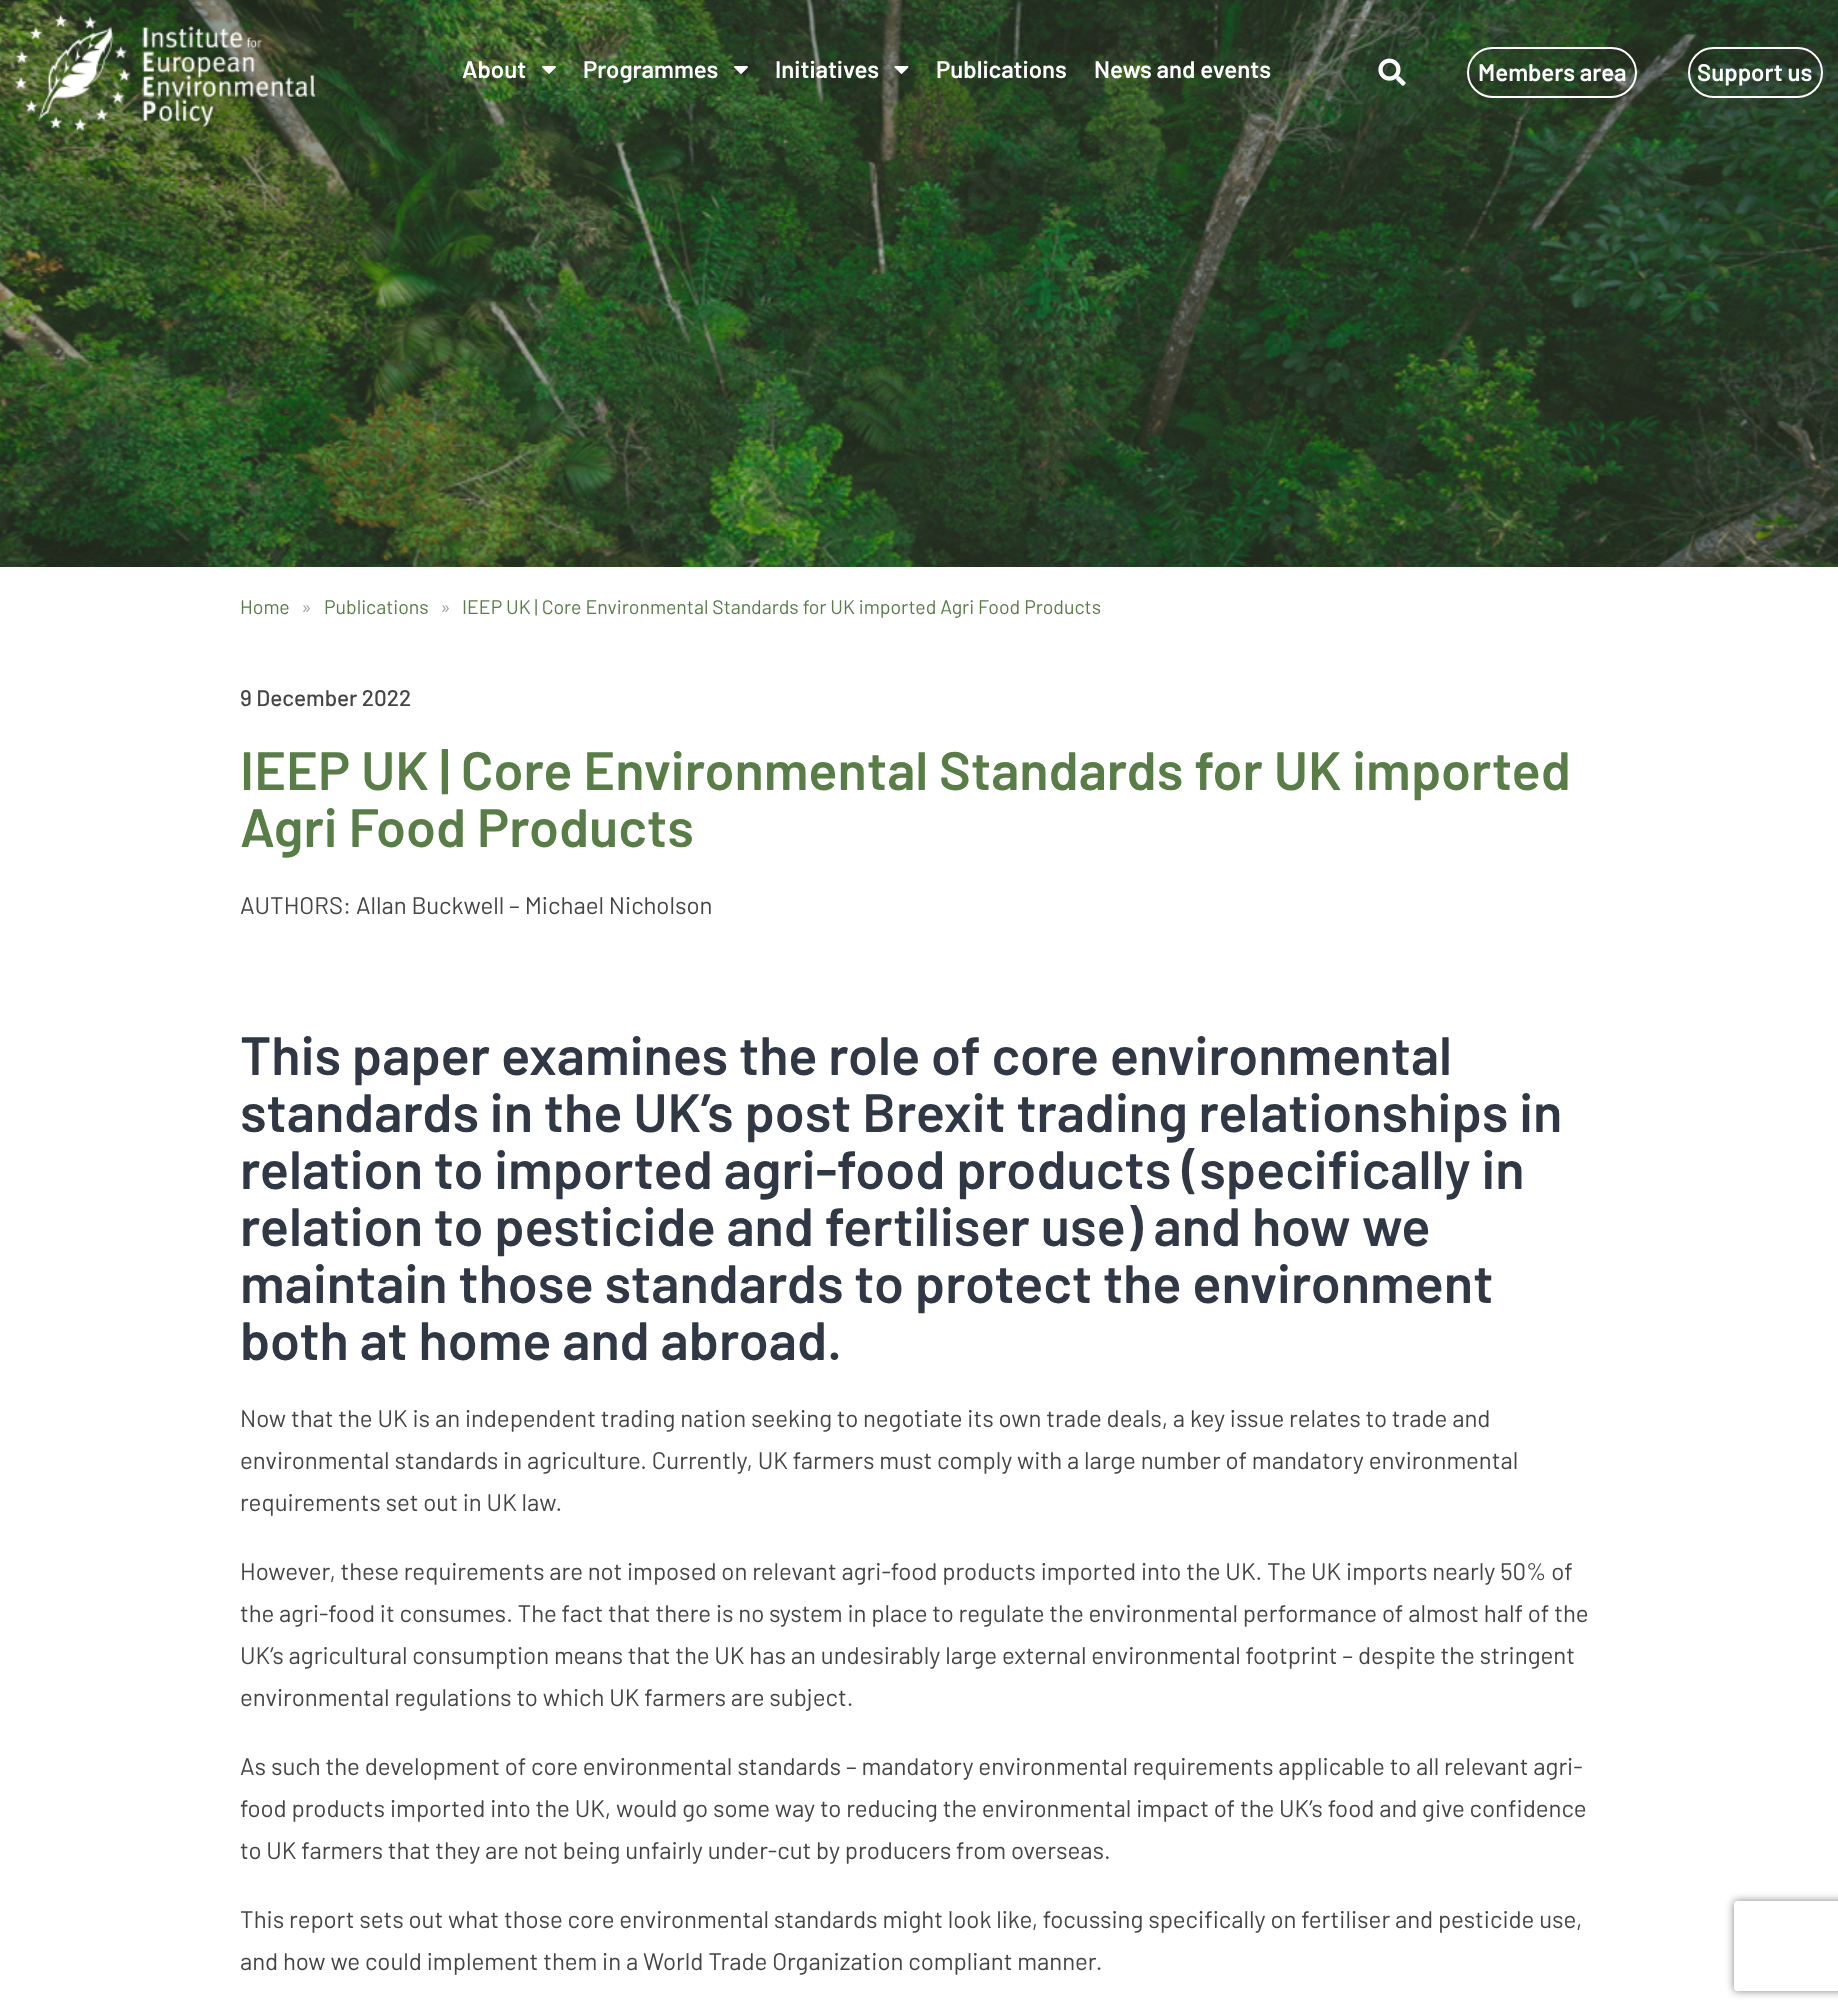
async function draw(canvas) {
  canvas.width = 1838;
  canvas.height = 2011;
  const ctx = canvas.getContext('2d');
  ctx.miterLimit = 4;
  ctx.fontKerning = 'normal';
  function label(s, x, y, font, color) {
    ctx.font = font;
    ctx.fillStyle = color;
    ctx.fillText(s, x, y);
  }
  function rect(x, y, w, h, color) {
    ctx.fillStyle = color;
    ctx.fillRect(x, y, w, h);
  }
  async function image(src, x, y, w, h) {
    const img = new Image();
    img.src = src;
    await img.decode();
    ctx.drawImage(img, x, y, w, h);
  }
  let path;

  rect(0, 0, 1838, 2011, '#fff');
  await image('assets/img6.png', 0, 0, 1838, 567);
  await image('assets/img1.png', 15, 15, 300, 116);
  label('About', 462, 78, '600 24px Barlow', '#fff');
  await image('assets/img2.png', 542, 66, 14, 8);
  label('Programmes', 583, 78, '600 24px Barlow', '#fff');
  await image('assets/img3.png', 734, 66, 14, 8);
  label('Initiatives', 775, 78, '600 24px Barlow', '#fff');
  await image('assets/img4.png', 894, 66, 15, 8);
  label('Publications', 936, 78, '600 24px Barlow', '#fff');
  label('News and events', 1094, 78, '600 24px Barlow', '#fff');
  await image('assets/img5.png', 1378, 58, 28, 28);
  ctx.beginPath();
  ctx.roundRect(1468, 48, 168, 49, 24.5);
  ctx.strokeStyle = '#fff';
  ctx.lineWidth = 2;
  ctx.stroke();
  label('Members area', 1478, 81, '600 24px Barlow', '#fff');
  ctx.beginPath();
  ctx.roundRect(1689, 48, 133, 49, 24.5);
  ctx.stroke();
  label('Support us', 1697, 81, '600 24px Barlow', '#fff');
  label('Home', 240, 614, '19.5px Barlow', '#587d46');
  label('»', 301, 614, '19.5px Barlow', '#959fa5');
  label('Publications', 324, 614, '19.5px Barlow', '#587d46');
  label('»', 440, 614, '19.5px Barlow', '#959fa5');
  label('IEEP UK | Core Environmental Standards for UK imported Agri Food Products', 462, 614, '19.5px Barlow', '#587d46');
  label('9 December 2022', 240, 706, '500 22.5px Barlow', '#454546');
  label('IEEP UK | Core Environmental Standards for UK imported', 240, 790, '600 54px Barlow', '#587d46');
  label('Agri Food Products', 240, 847, '600 54px Barlow', '#587d46');
  label('AUTHORS: Allan Buckwell – Michael Nicholson', 240, 914, '24px Barlow', '#454546');
  label('This paper examines the role of core environmental', 240, 1075, '600 54px Barlow', '#313845');
  label('standards in the UK’s post Brexit trading relationships in', 240, 1132, '600 54px Barlow', '#313845');
  label('relation to imported agri-food products (specifically in', 240, 1189, '600 54px Barlow', '#313845');
  label('relation to pesticide and fertiliser use) and how we', 240, 1246, '600 54px Barlow', '#313845');
  label('maintain those standards to protect the environment', 240, 1303, '600 54px Barlow', '#313845');
  label('both at home and abroad.', 240, 1360, '600 54px Barlow', '#313845');
  label('Now that the UK is an independent trading nation seeking to negotiate its own trade deals, a key issue relates to trade and', 240, 1427, '24px Barlow', '#454546');
  label('environmental standards in agriculture. Currently, UK farmers must comply with a large number of mandatory environmental', 240, 1469, '24px Barlow', '#454546');
  label('requirements set out in UK law.', 240, 1511, '24px Barlow', '#454546');
  label('However, these requirements are not imposed on relevant agri-food products imported into the UK. The UK imports nearly 50% of', 240, 1580, '24px Barlow', '#454546');
  label('the agri-food it consumes. The fact that there is no system in place to regulate the environmental performance of almost half of the', 240, 1622, '24px Barlow', '#454546');
  label('UK’s agricultural consumption means that the UK has an undesirably large external environmental footprint – despite the stringent', 240, 1664, '24px Barlow', '#454546');
  label('environmental regulations to which UK farmers are subject.', 240, 1706, '24px Barlow', '#454546');
  label('As such the development of core environmental standards – mandatory environmental requirements applicable to all relevant agri-', 240, 1775, '24px Barlow', '#454546');
  label('food products imported into the UK, would go some way to reducing the environmental impact of the UK’s food and give confidence', 240, 1817, '24px Barlow', '#454546');
  label('to UK farmers that they are not being unfairly under-cut by producers from overseas.', 240, 1859, '24px Barlow', '#454546');
  label('This report sets out what those core environmental standards might look like, focussing specifically on fertiliser and pesticide use,', 240, 1928, '24px Barlow', '#454546');
  label('and how we could implement them in a World Trade Organization compliant manner.', 240, 1970, '24px Barlow', '#454546');
  ctx.save();
  path = new Path2D('M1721 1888H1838V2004H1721ZM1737 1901H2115C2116.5 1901 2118 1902.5 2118 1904V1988C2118 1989.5 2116.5 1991 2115 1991H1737C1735.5 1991 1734 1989.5 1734 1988V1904C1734 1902.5 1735.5 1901 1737 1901Z');
  ctx.clip(path, 'evenodd');
  ctx.fillStyle = '#808080';
  ctx.filter = 'blur(4px)';
  ctx.beginPath();
  ctx.roundRect(1734, 1901, 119, 90, 3);
  ctx.fill();
  ctx.filter = 'none';
  ctx.restore();
}

draw(document.querySelector('canvas'));
